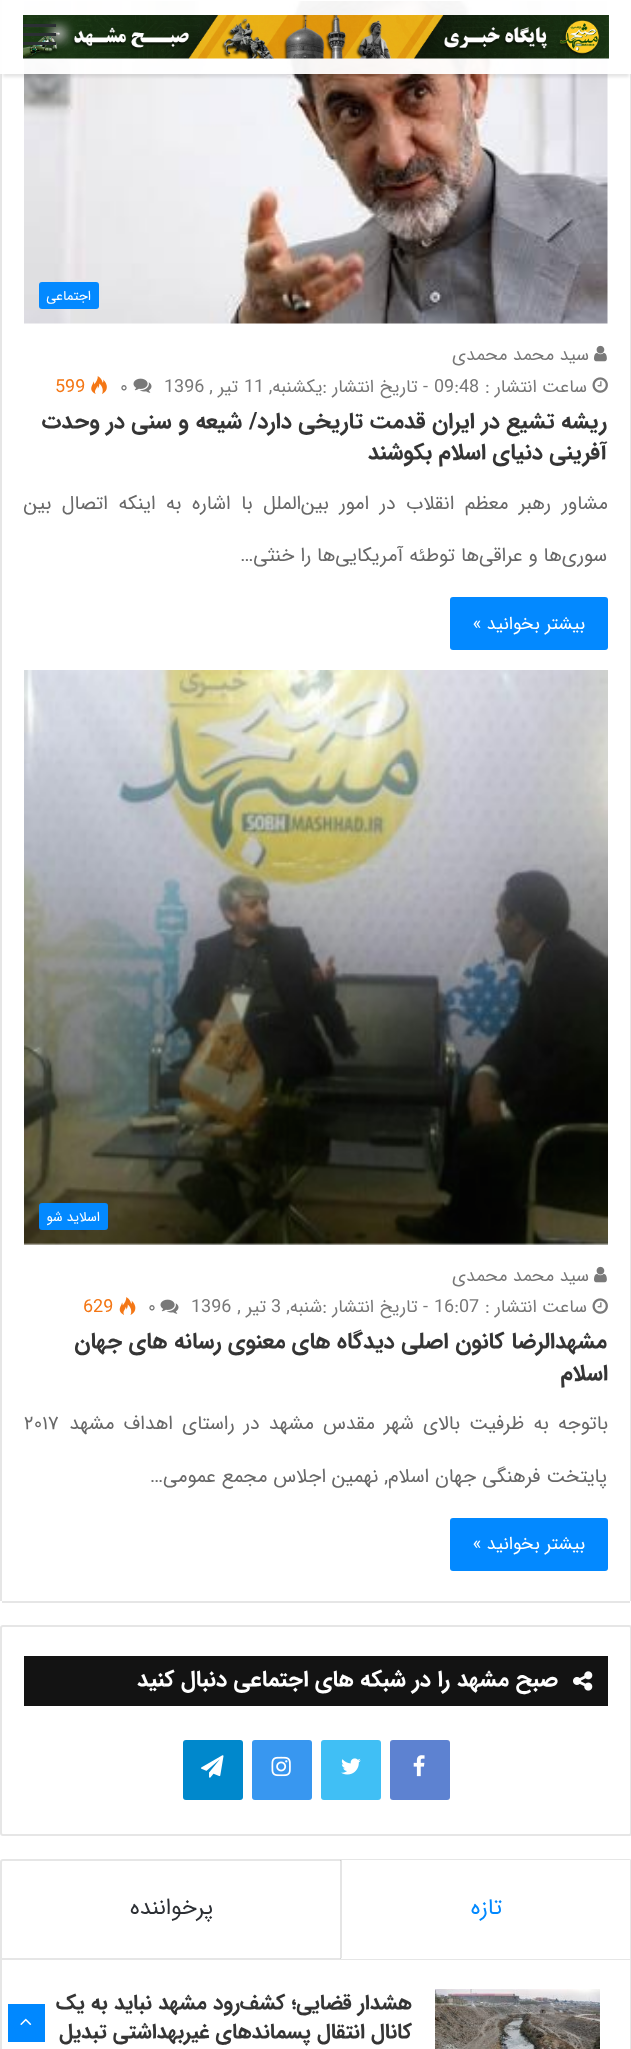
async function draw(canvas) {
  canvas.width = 631;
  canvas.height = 2049;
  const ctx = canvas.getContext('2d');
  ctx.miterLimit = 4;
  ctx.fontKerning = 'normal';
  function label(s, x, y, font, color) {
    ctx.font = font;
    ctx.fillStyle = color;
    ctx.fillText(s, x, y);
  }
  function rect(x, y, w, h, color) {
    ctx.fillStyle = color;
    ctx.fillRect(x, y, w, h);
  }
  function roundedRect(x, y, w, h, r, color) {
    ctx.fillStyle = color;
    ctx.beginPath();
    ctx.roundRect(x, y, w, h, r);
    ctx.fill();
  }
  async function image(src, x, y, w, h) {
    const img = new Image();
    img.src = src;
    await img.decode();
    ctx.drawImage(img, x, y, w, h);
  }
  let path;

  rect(0, 0, 631, 2049, '#fff');
  rect(630, 0, 1, 1601, '#e6e6e6');
  rect(0, 0, 2, 1601, '#e6e6e6');
  await image('assets/img2.png', 24, 1, 584, 323);
  ctx.save();
  path = new Path2D('M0 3H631V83H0ZM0 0H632V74H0Z');
  ctx.clip(path, 'evenodd');
  ctx.fillStyle = '#0000001a';
  ctx.filter = 'blur(1.5px)';
  ctx.beginPath();
  ctx.rect(3, 9, 626, 68);
  ctx.fill();
  ctx.filter = 'none';
  ctx.restore();
  rect(0, 0, 631, 74, '#fffffff2');
  await image('assets/img1.png', 23, 15, 586, 44);
  rect(23, 33, 33, 3, '#2c2f34');
  rect(23, 24, 33, 3, '#2c2f34');
  rect(23, 42, 33, 3, '#2c2f34');
  rect(2, 1601, 628, 2, '#e6e6e6');
  roundedRect(39, 282, 60, 27, 3, '#0389ff');
  ctx.direction = 'rtl';
  label('اجتماعی', 91, 300, '13.5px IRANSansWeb', '#fff');
  await image('assets/img3.png', 594, 345, 13, 17);
  label('سید محمد محمدی', 589, 360, '18px IRANSansWeb', '#787878');
  await image('assets/img4.png', 592, 377, 16, 16);
  label('ساعت انتشار :', 587, 392, '18px IRANSansWeb', '#787878');
  ctx.direction = 'ltr';
  label('09:48', 434, 392, '18px IRANSansWeb', '#787878');
  ctx.direction = 'rtl';
  label('- تاریخ انتشار :یکشنبه,', 428, 392, '18px IRANSansWeb', '#787878');
  ctx.direction = 'ltr';
  label('11', 244, 392, '18px IRANSansWeb', '#787878');
  ctx.direction = 'rtl';
  label('تیر ,', 238, 392, '18px IRANSansWeb', '#787878');
  ctx.direction = 'ltr';
  label('1396', 164, 392, '18px IRANSansWeb', '#787878');
  await image('assets/img5.png', 133, 378, 19, 15);
  label('۰', 120, 392, '18px IRANSansWeb', '#787878');
  await image('assets/img6.png', 91, 376, 16, 18);
  label('599', 55, 392, '18px IRANSansWeb', '#f47614');
  ctx.direction = 'rtl';
  label('ریشه تشیع در ایران قدمت تاریخی دارد/ شیعه و سنی در وحدت', 607, 428, 'bold 22.5px IRANSansWeb', '#353535');
  label('آفرینی دنیای اسلام بکوشند', 607, 459, 'bold 22.5px IRANSansWeb', '#353535');
  ctx.wordSpacing = '4.75px';
  label('مشاور رهبر معظم انقلاب در امور بین‌الملل با اشاره به اینکه اتصال بین', 608, 509, '19.5px IRANSansWeb', '#686868');
  ctx.wordSpacing = '0px';
  label('سوری‌ها و عراقی‌ها توطئه آمریکایی‌ها را خنثی…', 607, 561, '19.5px IRANSansWeb', '#686868');
  roundedRect(450, 597, 158, 53, 3, '#0389ff');
  label('بیشتر بخوانید »', 585, 629, '18px IRANSansWeb', '#fff');
  await image('assets/img7.png', 24, 670, 584, 575);
  roundedRect(39, 1203, 69, 27, 3, '#0389ff');
  label('اسلاید شو', 100, 1221, '13.5px IRANSansWeb', '#fff');
  await image('assets/img3.png', 594, 1266, 13, 17);
  label('سید محمد محمدی', 589, 1281, '18px IRANSansWeb', '#787878');
  await image('assets/img4.png', 592, 1298, 16, 16);
  label('ساعت انتشار :', 587, 1312, '18px IRANSansWeb', '#787878');
  ctx.direction = 'ltr';
  label('16:07', 434, 1312, '18px IRANSansWeb', '#787878');
  ctx.direction = 'rtl';
  label('- تاریخ انتشار :شنبه,', 428, 1312, '18px IRANSansWeb', '#787878');
  ctx.direction = 'ltr';
  label('3', 271, 1312, '18px IRANSansWeb', '#787878');
  ctx.direction = 'rtl';
  label('تیر ,', 266, 1312, '18px IRANSansWeb', '#787878');
  ctx.direction = 'ltr';
  label('1396', 191, 1312, '18px IRANSansWeb', '#787878');
  await image('assets/img5.png', 160, 1299, 19, 15);
  label('۰', 148, 1312, '18px IRANSansWeb', '#787878');
  await image('assets/img8.png', 119, 1297, 17, 18);
  label('629', 83, 1312, '18px IRANSansWeb', '#f47614');
  ctx.direction = 'rtl';
  label('مشهدالرضا کانون اصلی دیدگاه های معنوی رسانه های جهان', 607, 1348, 'bold 22.5px IRANSansWeb', '#353535');
  label('اسلام', 608, 1380, 'bold 22.5px IRANSansWeb', '#353535');
  ctx.wordSpacing = '3.25px';
  label('باتوجه به ظرفیت بالای شهر مقدس مشهد در راستای اهداف مشهد', 608, 1429, '19.5px IRANSansWeb', '#686868');
  ctx.wordSpacing = '0px';
  ctx.direction = 'ltr';
  label('۲۰۱۷', 24, 1429, '19.5px IRANSansWeb', '#686868');
  ctx.direction = 'rtl';
  label('پایتخت فرهنگی جهان اسلام, نهمین اجلاس مجمع عمومی…', 607, 1482, '19.5px IRANSansWeb', '#686868');
  roundedRect(450, 1518, 158, 53, 3, '#0389ff');
  label('بیشتر بخوانید »', 585, 1549, '18px IRANSansWeb', '#fff');
  ctx.beginPath();
  ctx.roundRect(1, 1626, 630, 209, 2);
  ctx.strokeStyle = '#e6e6e6';
  ctx.lineWidth = 2;
  ctx.stroke();
  rect(24, 1656, 584, 50, '#131313');
  await image('assets/img9.png', 573, 1671, 20, 20);
  label('صبح مشهد را در شبکه های اجتماعی دنبال کنید', 558, 1686, 'bold 22.5px IRANSansWeb', '#fff');
  roundedRect(390, 1740, 60, 60, 3, '#5d82d1');
  await image('assets/img10.png', 413, 1755, 12, 22);
  roundedRect(321, 1740, 60, 60, 3, '#40bff5');
  await image('assets/img11.png', 341, 1758, 20, 17);
  roundedRect(252, 1740, 60, 60, 3, '#3897f0');
  await image('assets/img12.png', 271, 1756, 20, 21);
  roundedRect(183, 1740, 60, 60, 3, '#08c');
  await image('assets/img13.png', 201, 1755, 23, 23);
  ctx.beginPath();
  ctx.roundRect(1, 1860, 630, 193, 2);
  ctx.stroke();
  rect(2, 1958, 628, 2, '#e6e6e6');
  rect(341, 1860, 289, 99, '#fff');
  ctx.fillStyle = '#0000001a';
  path = new Path2D('M340 1959V1860H342V1958Z');
  ctx.fill(path);
  label('تازه', 502, 1914, '22.5px IRANSansWeb', '#08f');
  label('پرخواننده', 213, 1914, '22.5px IRANSansWeb', '#2c2f34');
  await image('assets/img14.png', 435, 1989, 165, 60);
  label('هشدار قضایی؛ کشف‌رود مشهد نباید به یک', 412, 2009, 'bold 21px IRANSansWeb', '#353535');
  label('کانال انتقال پسماند‌های غیربهداشتی تبدیل', 412, 2038, 'bold 21px IRANSansWeb', '#353535');
  rect(8, 2004, 37, 38, '#08f');
  await image('assets/img15.png', 20, 2018, 12, 7);
}

draw(document.querySelector('canvas'));
